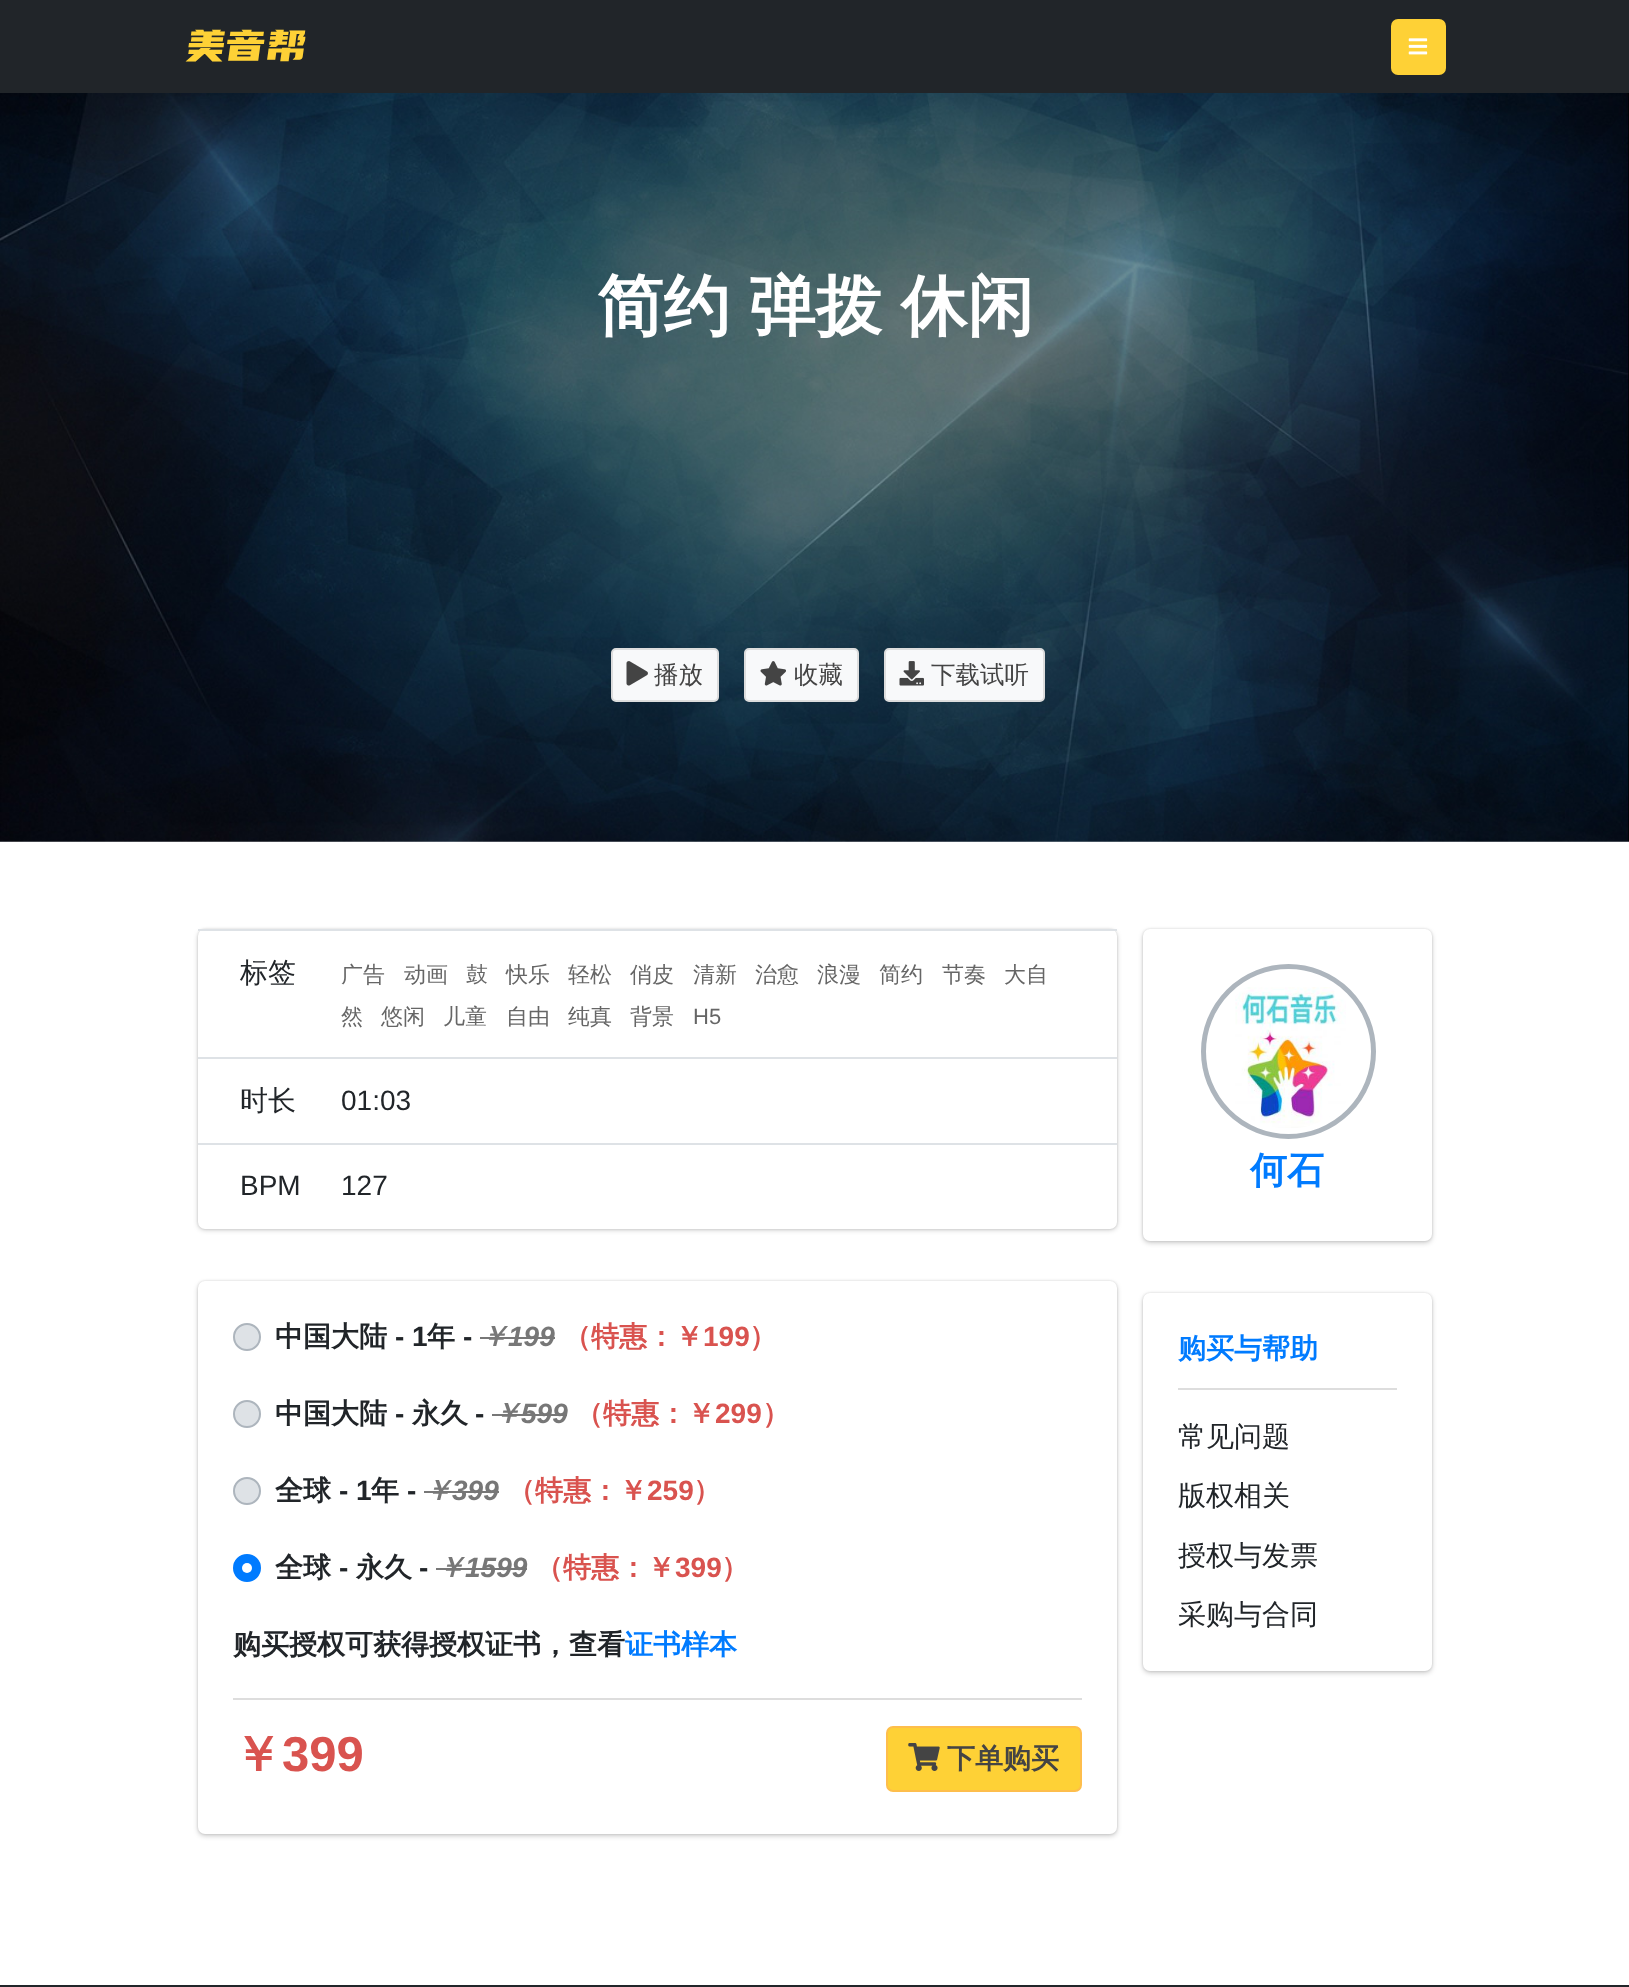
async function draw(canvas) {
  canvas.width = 1629;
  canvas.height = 1987;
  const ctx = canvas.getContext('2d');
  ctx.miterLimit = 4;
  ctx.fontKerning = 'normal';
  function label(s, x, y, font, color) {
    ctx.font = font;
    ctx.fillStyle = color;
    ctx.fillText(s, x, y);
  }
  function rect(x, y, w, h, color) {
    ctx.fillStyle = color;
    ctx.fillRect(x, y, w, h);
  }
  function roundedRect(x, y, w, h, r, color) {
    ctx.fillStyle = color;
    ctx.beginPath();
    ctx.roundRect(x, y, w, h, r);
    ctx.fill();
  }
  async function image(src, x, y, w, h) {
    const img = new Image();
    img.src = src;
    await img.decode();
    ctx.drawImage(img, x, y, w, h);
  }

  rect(0, 0, 1629, 1987, '#fff');
  rect(0, 0, 1629, 93, '#212529');
  label('美音帮', 185, 61, '44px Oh', '#fed136');
  roundedRect(1391, 19, 55, 56, 7, '#fed136');
  await image('assets/img1.png', 1408, 38, 20, 17);
  await image('assets/img2.png', 0, 93, 1629, 749);
  ctx.wordSpacing = '-1px';
  label('简约 弹拨 休闲', 597, 329, 'bold 66.5px WenQuanYi Zen Hei', '#fff');
  ctx.fillStyle = '#f8f9fa';
  ctx.beginPath();
  ctx.roundRect(612, 649, 106, 52, 4);
  ctx.fill();
  ctx.strokeStyle = '#ddd';
  ctx.lineWidth = 2;
  ctx.stroke();
  await image('assets/img3.png', 626, 661, 22, 25);
  ctx.wordSpacing = '0px';
  label('播放', 654, 683, '500 24.5px WenQuanYi Zen Hei', '#444');
  ctx.fillStyle = '#f8f9fa';
  ctx.beginPath();
  ctx.roundRect(745, 649, 113, 52, 4);
  ctx.fill();
  ctx.stroke();
  await image('assets/img4.png', 760, 661, 26, 25);
  label('收藏', 794, 683, '500 24.5px WenQuanYi Zen Hei', '#444');
  ctx.fillStyle = '#f8f9fa';
  ctx.beginPath();
  ctx.roundRect(885, 649, 159, 52, 4);
  ctx.fill();
  ctx.stroke();
  await image('assets/img5.png', 899, 661, 25, 25);
  label('下载试听', 931, 683, '500 24.5px WenQuanYi Zen Hei', '#444');
  ctx.fillStyle = '#00000033';
  ctx.filter = 'blur(2.5px)';
  ctx.beginPath();
  ctx.roundRect(198, 931, 919, 299, 7);
  ctx.fill();
  ctx.filter = 'none';
  ctx.fillStyle = '#0000001f';
  ctx.filter = 'blur(1px)';
  ctx.beginPath();
  ctx.roundRect(198, 929, 919, 300, 7);
  ctx.fill();
  ctx.filter = 'none';
  roundedRect(198, 929, 919, 300, 7, '#fff');
  label('标签', 240, 982, '500 28px WenQuanYi Zen Hei', '#212529');
  rect(198, 929, 919, 2, '#dee2e6');
  label('广告', 341, 982, '500 22px WenQuanYi Zen Hei', '#666');
  label('动画', 404, 982, '500 22px WenQuanYi Zen Hei', '#666');
  label('鼓', 466, 982, '500 22px WenQuanYi Zen Hei', '#666');
  label('快乐', 506, 982, '500 22px WenQuanYi Zen Hei', '#666');
  label('轻松', 568, 982, '500 22px WenQuanYi Zen Hei', '#666');
  label('俏皮', 630, 982, '500 22px WenQuanYi Zen Hei', '#666');
  label('清新', 693, 982, '500 22px WenQuanYi Zen Hei', '#666');
  label('治愈', 755, 982, '500 22px WenQuanYi Zen Hei', '#666');
  label('浪漫', 817, 982, '500 22px WenQuanYi Zen Hei', '#666');
  label('简约', 879, 982, '500 22px WenQuanYi Zen Hei', '#666');
  label('节奏', 942, 982, '500 22px WenQuanYi Zen Hei', '#666');
  label('大自', 1004, 982, '500 22px WenQuanYi Zen Hei', '#666');
  label('然', 341, 1024, '500 22px WenQuanYi Zen Hei', '#666');
  label('悠闲', 381, 1024, '500 22px WenQuanYi Zen Hei', '#666');
  label('儿童', 443, 1024, '500 22px WenQuanYi Zen Hei', '#666');
  label('自由', 506, 1024, '500 22px WenQuanYi Zen Hei', '#666');
  label('纯真', 568, 1024, '500 22px WenQuanYi Zen Hei', '#666');
  label('背景', 630, 1024, '500 22px WenQuanYi Zen Hei', '#666');
  label('H5', 693, 1024, '22px Liberation Sans', '#666');
  label('时长', 240, 1110, '500 28px WenQuanYi Zen Hei', '#212529');
  rect(198, 1057, 919, 2, '#dee2e6');
  label('01:03', 341, 1110, '28px Liberation Sans', '#212529');
  label('BPM', 240, 1195, '28px Liberation Sans', '#212529');
  rect(198, 1143, 919, 2, '#dee2e6');
  label('127', 341, 1195, '28px Liberation Sans', '#212529');
  ctx.fillStyle = '#00000033';
  ctx.filter = 'blur(2.5px)';
  ctx.beginPath();
  ctx.roundRect(198, 1283, 919, 553, 7);
  ctx.fill();
  ctx.filter = 'none';
  ctx.fillStyle = '#0000001f';
  ctx.filter = 'blur(1px)';
  ctx.beginPath();
  ctx.roundRect(198, 1281, 919, 553, 7);
  ctx.fill();
  ctx.filter = 'none';
  roundedRect(198, 1281, 919, 553, 7, '#fff');
  rect(233, 1698, 849, 2, '#ddd');
  ctx.fillStyle = '#dee2e6';
  ctx.beginPath();
  ctx.arc(247, 1337, 13, 0, 2 * Math.PI);
  ctx.fill();
  ctx.strokeStyle = '#adb5bd';
  ctx.stroke();
  label('中国大陆', 275, 1346, 'bold 28px WenQuanYi Zen Hei', '#212529');
  label('- 1', 395, 1346, 'bold 28px Liberation Sans', '#212529');
  label('年', 427, 1346, 'bold 28px WenQuanYi Zen Hei', '#212529');
  label('-', 463, 1346, 'bold 28px Liberation Sans', '#212529');
  label('￥', 480, 1346, 'italic bold 28px WenQuanYi Zen Hei', '#777');
  label('199', 508, 1346, 'italic bold 28px Liberation Sans', '#777');
  rect(480, 1337, 75, 2, '#777');
  label('（特惠：￥', 563, 1346, 'bold 28px WenQuanYi Zen Hei', '#d9534f');
  label('199', 703, 1346, 'bold 28px Liberation Sans', '#d9534f');
  label('）', 749, 1346, 'bold 28px WenQuanYi Zen Hei', '#d9534f');
  ctx.fillStyle = '#dee2e6';
  ctx.beginPath();
  ctx.arc(247, 1414, 13, 0, 2 * Math.PI);
  ctx.fill();
  ctx.stroke();
  label('中国大陆', 275, 1423, 'bold 28px WenQuanYi Zen Hei', '#212529');
  label('-', 395, 1423, 'bold 28px Liberation Sans', '#212529');
  label('永久', 412, 1423, 'bold 28px WenQuanYi Zen Hei', '#212529');
  label('-', 475, 1423, 'bold 28px Liberation Sans', '#212529');
  label('￥', 493, 1423, 'italic bold 28px WenQuanYi Zen Hei', '#777');
  label('599', 521, 1423, 'italic bold 28px Liberation Sans', '#777');
  rect(492, 1414, 75, 2, '#777');
  label('（特惠：￥', 575, 1423, 'bold 28px WenQuanYi Zen Hei', '#d9534f');
  label('299', 715, 1423, 'bold 28px Liberation Sans', '#d9534f');
  label('）', 762, 1423, 'bold 28px WenQuanYi Zen Hei', '#d9534f');
  ctx.fillStyle = '#dee2e6';
  ctx.beginPath();
  ctx.arc(247, 1491, 13, 0, 2 * Math.PI);
  ctx.fill();
  ctx.stroke();
  label('全球', 275, 1500, 'bold 28px WenQuanYi Zen Hei', '#212529');
  label('- 1', 339, 1500, 'bold 28px Liberation Sans', '#212529');
  label('年', 371, 1500, 'bold 28px WenQuanYi Zen Hei', '#212529');
  label('-', 407, 1500, 'bold 28px Liberation Sans', '#212529');
  label('￥', 424, 1500, 'italic bold 28px WenQuanYi Zen Hei', '#777');
  label('399', 452, 1500, 'italic bold 28px Liberation Sans', '#777');
  rect(424, 1491, 75, 2, '#777');
  label('（特惠：￥', 507, 1500, 'bold 28px WenQuanYi Zen Hei', '#d9534f');
  label('259', 647, 1500, 'bold 28px Liberation Sans', '#d9534f');
  label('）', 693, 1500, 'bold 28px WenQuanYi Zen Hei', '#d9534f');
  ctx.fillStyle = '#007bff';
  ctx.beginPath();
  ctx.arc(247, 1568, 13, 0, 2 * Math.PI);
  ctx.fill();
  ctx.strokeStyle = '#007bff';
  ctx.stroke();
  label('全球', 275, 1577, 'bold 28px WenQuanYi Zen Hei', '#212529');
  label('永久', 356, 1577, 'bold 28px WenQuanYi Zen Hei', '#212529');
  label('￥', 437, 1577, 'italic bold 28px WenQuanYi Zen Hei', '#777');
  label('1599', 465, 1577, 'italic bold 28px Liberation Sans', '#777');
  rect(436, 1568, 91, 2, '#777');
  label('（特惠：￥', 535, 1577, 'bold 28px WenQuanYi Zen Hei', '#d9534f');
  label('399', 675, 1577, 'bold 28px Liberation Sans', '#d9534f');
  label('）', 721, 1577, 'bold 28px WenQuanYi Zen Hei', '#d9534f');
  ctx.fillStyle = '#fff';
  ctx.beginPath();
  ctx.arc(247, 1568, 5, 0, 2 * Math.PI);
  ctx.fill();
  label('-', 339, 1577, 'bold 28px Liberation Sans', '#212529');
  label('-', 419, 1577, 'bold 28px Liberation Sans', '#212529');
  label('购买授权可获得授权证书，查看', 233, 1654, 'bold 28px WenQuanYi Zen Hei', '#212529');
  label('证书样本', 625, 1654, 'bold 28px WenQuanYi Zen Hei', '#007bff');
  label('￥', 233, 1771, 'bold 49px WenQuanYi Zen Hei', '#d9534f');
  label('399', 282, 1771, 'bold 49px Liberation Sans', '#d9534f');
  ctx.fillStyle = '#fed136';
  ctx.beginPath();
  ctx.roundRect(887, 1727, 194, 64, 6);
  ctx.fill();
  ctx.strokeStyle = '#febe4c';
  ctx.stroke();
  await image('assets/img6.png', 908, 1743, 32, 28);
  label('下单购买', 947, 1768, 'bold 28px WenQuanYi Zen Hei', '#444');
  ctx.fillStyle = '#00000033';
  ctx.filter = 'blur(2.5px)';
  ctx.beginPath();
  ctx.roundRect(1143, 931, 289, 312, 7);
  ctx.fill();
  ctx.filter = 'none';
  ctx.fillStyle = '#0000001f';
  ctx.filter = 'blur(1px)';
  ctx.beginPath();
  ctx.roundRect(1143, 929, 289, 312, 7);
  ctx.fill();
  ctx.filter = 'none';
  roundedRect(1143, 929, 289, 312, 7, '#fff');
  ctx.beginPath();
  ctx.arc(1288.5, 1051.5, 85, 0, 2 * Math.PI);
  ctx.strokeStyle = '#adb5bd';
  ctx.lineWidth = 5;
  ctx.stroke();
  await image('assets/img7.png', 1235, 987, 111, 141);
  label('何石', 1250, 1183, 'bold 37px WenQuanYi Zen Hei', '#007bff');
  ctx.fillStyle = '#00000033';
  ctx.filter = 'blur(2.5px)';
  ctx.beginPath();
  ctx.roundRect(1143, 1295, 289, 378, 7);
  ctx.fill();
  ctx.filter = 'none';
  ctx.fillStyle = '#0000001f';
  ctx.filter = 'blur(1px)';
  ctx.beginPath();
  ctx.roundRect(1143, 1293, 289, 378, 7);
  ctx.fill();
  ctx.filter = 'none';
  roundedRect(1143, 1293, 289, 378, 7, '#fff');
  label('购买与帮助', 1178, 1358, 'bold 28px WenQuanYi Zen Hei', '#007bff');
  rect(1178, 1388, 219, 2, '#ddd');
  label('常见问题', 1178, 1446, '500 28px WenQuanYi Zen Hei', '#212529');
  label('版权相关', 1178, 1505, '500 28px WenQuanYi Zen Hei', '#212529');
  label('授权与发票', 1178, 1565, '500 28px WenQuanYi Zen Hei', '#212529');
  label('采购与合同', 1178, 1624, '500 28px WenQuanYi Zen Hei', '#212529');
  rect(0, 1985, 1629, 2, '#212529');
}

draw(document.querySelector('canvas'));
